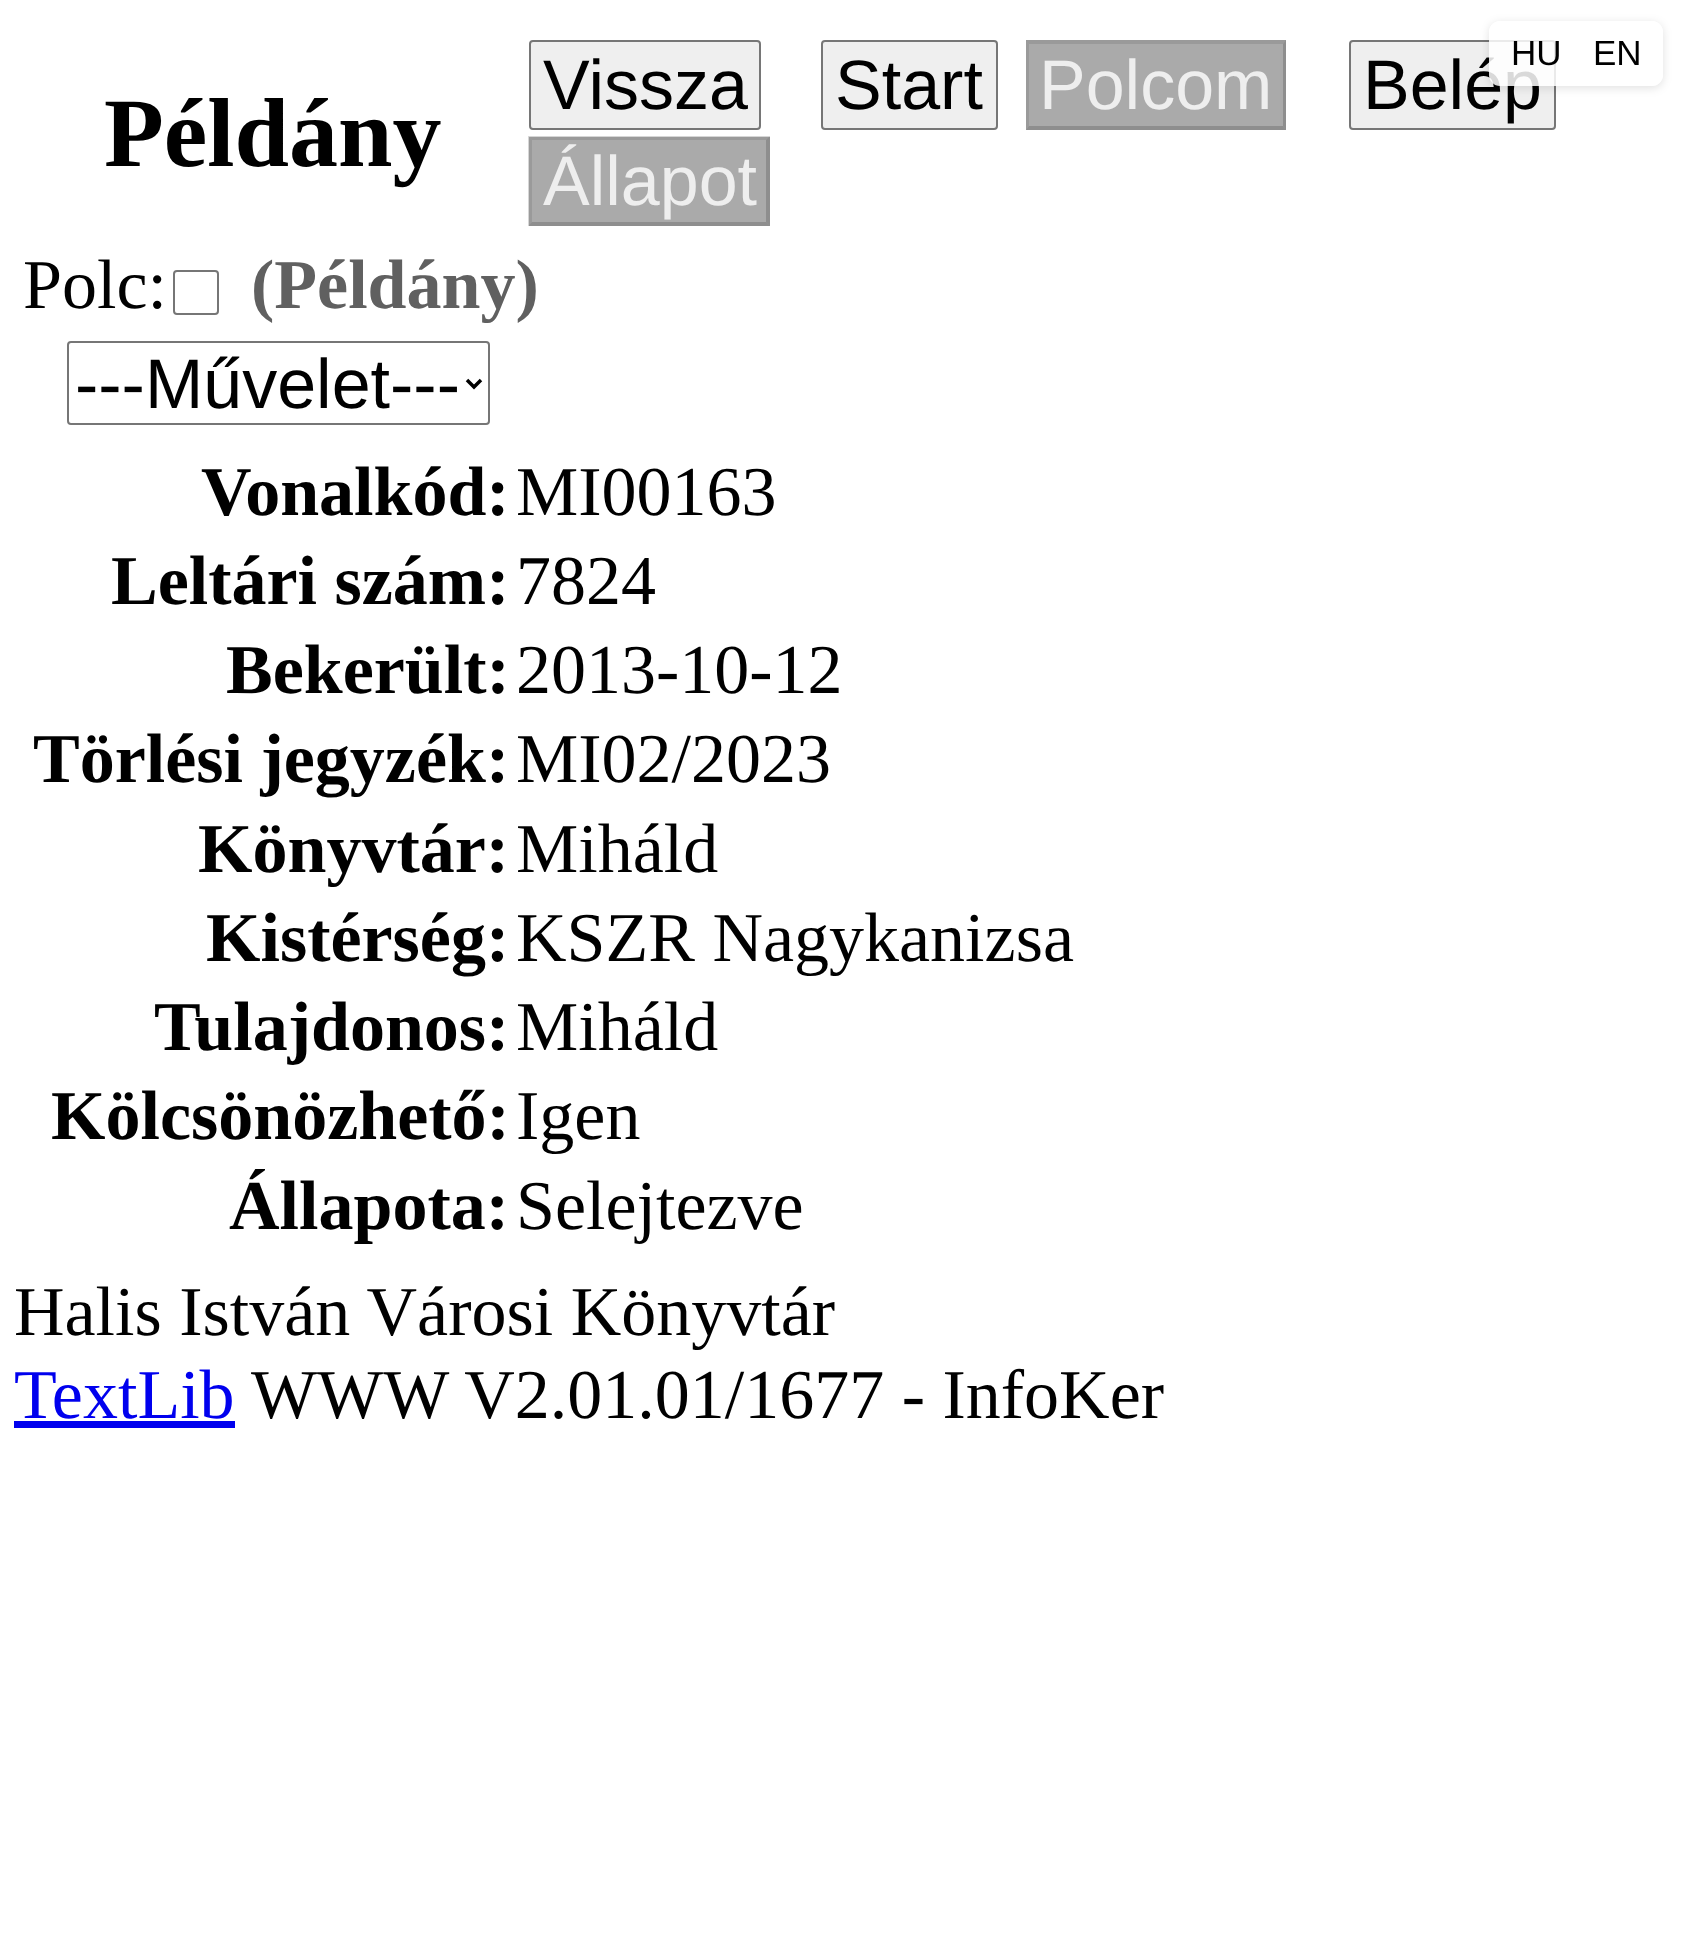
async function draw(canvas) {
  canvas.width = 1682;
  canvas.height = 1954;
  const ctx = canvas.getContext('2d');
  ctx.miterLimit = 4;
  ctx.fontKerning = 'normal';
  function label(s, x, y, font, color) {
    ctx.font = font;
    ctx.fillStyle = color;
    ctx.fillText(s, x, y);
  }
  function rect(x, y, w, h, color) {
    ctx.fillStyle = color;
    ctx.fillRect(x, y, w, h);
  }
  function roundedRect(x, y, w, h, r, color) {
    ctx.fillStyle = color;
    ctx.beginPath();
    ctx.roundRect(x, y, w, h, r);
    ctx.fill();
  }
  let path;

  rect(0, 0, 1682, 1954, '#fff');
  ctx.fillStyle = '#efefef';
  ctx.beginPath();
  ctx.roundRect(1350, 41, 205, 88, 3);
  ctx.fill();
  ctx.strokeStyle = '#767676';
  ctx.lineWidth = 2;
  ctx.stroke();
  ctx.save();
  path = new Path2D('M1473 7H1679V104H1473ZM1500 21H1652C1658 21 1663 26 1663 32V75C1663 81 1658 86 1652 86H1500C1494 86 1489 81 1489 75V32C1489 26 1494 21 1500 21Z');
  ctx.clip(path, 'evenodd');
  ctx.fillStyle = '#0000001f';
  ctx.filter = 'blur(5px)';
  ctx.beginPath();
  ctx.roundRect(1489, 23, 174, 65, 11);
  ctx.fill();
  ctx.filter = 'none';
  ctx.restore();
  label('Belép', 1363, 109, '70px Liberation Sans', '#000');
  roundedRect(1489, 21, 174, 65, 11, '#ffffffd9');
  label('HU', 1511, 65, '35px Liberation Sans', '#000');
  label('EN', 1593, 65, '35px Liberation Sans', '#000');
  label('Példány', 104, 166, 'bold 98px Liberation Serif', '#000');
  ctx.fillStyle = '#efefef';
  ctx.beginPath();
  ctx.roundRect(530, 41, 230, 88, 3);
  ctx.fill();
  ctx.stroke();
  label('Vissza', 543, 109, '70px Liberation Sans', '#000');
  ctx.fillStyle = '#efefef';
  ctx.beginPath();
  ctx.roundRect(822, 41, 175, 88, 3);
  ctx.fill();
  ctx.stroke();
  label('Start', 835, 109, '70px Liberation Sans', '#000');
  rect(1026, 40, 260, 90, '#aaa');
  ctx.fillStyle = '#9a9a9a';
  path = new Path2D('M1026 40H1286L1283 44H1029Z');
  ctx.fill(path);
  ctx.fillStyle = '#4f4f4f4d';
  path = new Path2D('M1286 40V130L1283 126V44Z');
  ctx.fill(path);
  path = new Path2D('M1286 130H1026L1029 126H1283Z');
  ctx.fill(path);
  ctx.fillStyle = '#7676764d';
  path = new Path2D('M1026 130V40L1029 44V126Z');
  ctx.fill(path);
  label('Polcom', 1039, 109, '70px Liberation Sans', '#eee');
  rect(529, 137, 241, 89, '#aaa');
  ctx.fillStyle = '#7676764d';
  path = new Path2D('M528 136H770L766 140H532Z');
  ctx.fill(path);
  ctx.fillStyle = '#4f4f4f4d';
  path = new Path2D('M770 136V226L766 222V140Z');
  ctx.fill(path);
  path = new Path2D('M770 226H528L532 222H766Z');
  ctx.fill(path);
  ctx.fillStyle = '#7676764d';
  path = new Path2D('M528 226V136L532 140V222Z');
  ctx.fill(path);
  label('Állapot', 543, 205, '70px Liberation Sans', '#eee');
  label('Polc:', 23, 308, '70px Liberation Serif', '#000');
  ctx.beginPath();
  ctx.roundRect(174, 271, 44, 43, 3);
  ctx.stroke();
  label('(Példány)', 251, 308, 'bold 70px Liberation Serif', '#606060');
  ctx.beginPath();
  ctx.roundRect(68, 342, 421, 82, 3);
  ctx.stroke();
  path = new Path2D('M467 380L474 387L481 380');
  ctx.strokeStyle = '#000';
  ctx.lineWidth = 3.5;
  ctx.stroke(path);
  label('---Művelet---', 75, 408, '70px Liberation Sans', '#000');
  label('Vonalkód:', 201, 515, 'bold 70px Liberation Serif', '#000');
  label('MI00163', 516, 515, '70px Liberation Serif', '#000');
  label('Leltári szám:', 111, 604, 'bold 70px Liberation Serif', '#000');
  label('7824', 516, 604, '70px Liberation Serif', '#000');
  label('Bekerült:', 226, 693, 'bold 70px Liberation Serif', '#000');
  label('2013-10-12', 516, 693, '70px Liberation Serif', '#000');
  label('Törlési jegyzék:', 33, 782, 'bold 70px Liberation Serif', '#000');
  label('MI02/2023', 516, 782, '70px Liberation Serif', '#000');
  label('Könyvtár:', 198, 872, 'bold 70px Liberation Serif', '#000');
  label('Miháld', 516, 872, '70px Liberation Serif', '#000');
  label('Kistérség:', 206, 961, 'bold 70px Liberation Serif', '#000');
  label('KSZR Nagykanizsa', 516, 961, '70px Liberation Serif', '#000');
  label('Tulajdonos:', 154, 1050, 'bold 70px Liberation Serif', '#000');
  label('Miháld', 516, 1050, '70px Liberation Serif', '#000');
  label('Kölcsönözhető:', 51, 1139, 'bold 70px Liberation Serif', '#000');
  label('Igen', 516, 1139, '70px Liberation Serif', '#000');
  label('Állapota:', 229, 1229, 'bold 70px Liberation Serif', '#000');
  label('Selejtezve', 516, 1229, '70px Liberation Serif', '#000');
  label('Halis István Városi Könyvtár', 14, 1335, '70px Liberation Serif', '#000');
  label('TextLib', 14, 1418, '70px Liberation Serif', '#00e');
  rect(14, 1421, 221, 7, '#00e');
  label('WWW V2.01.01/1677 - InfoKer', 251, 1418, '70px Liberation Serif', '#000');
}

draw(document.querySelector('canvas'));
